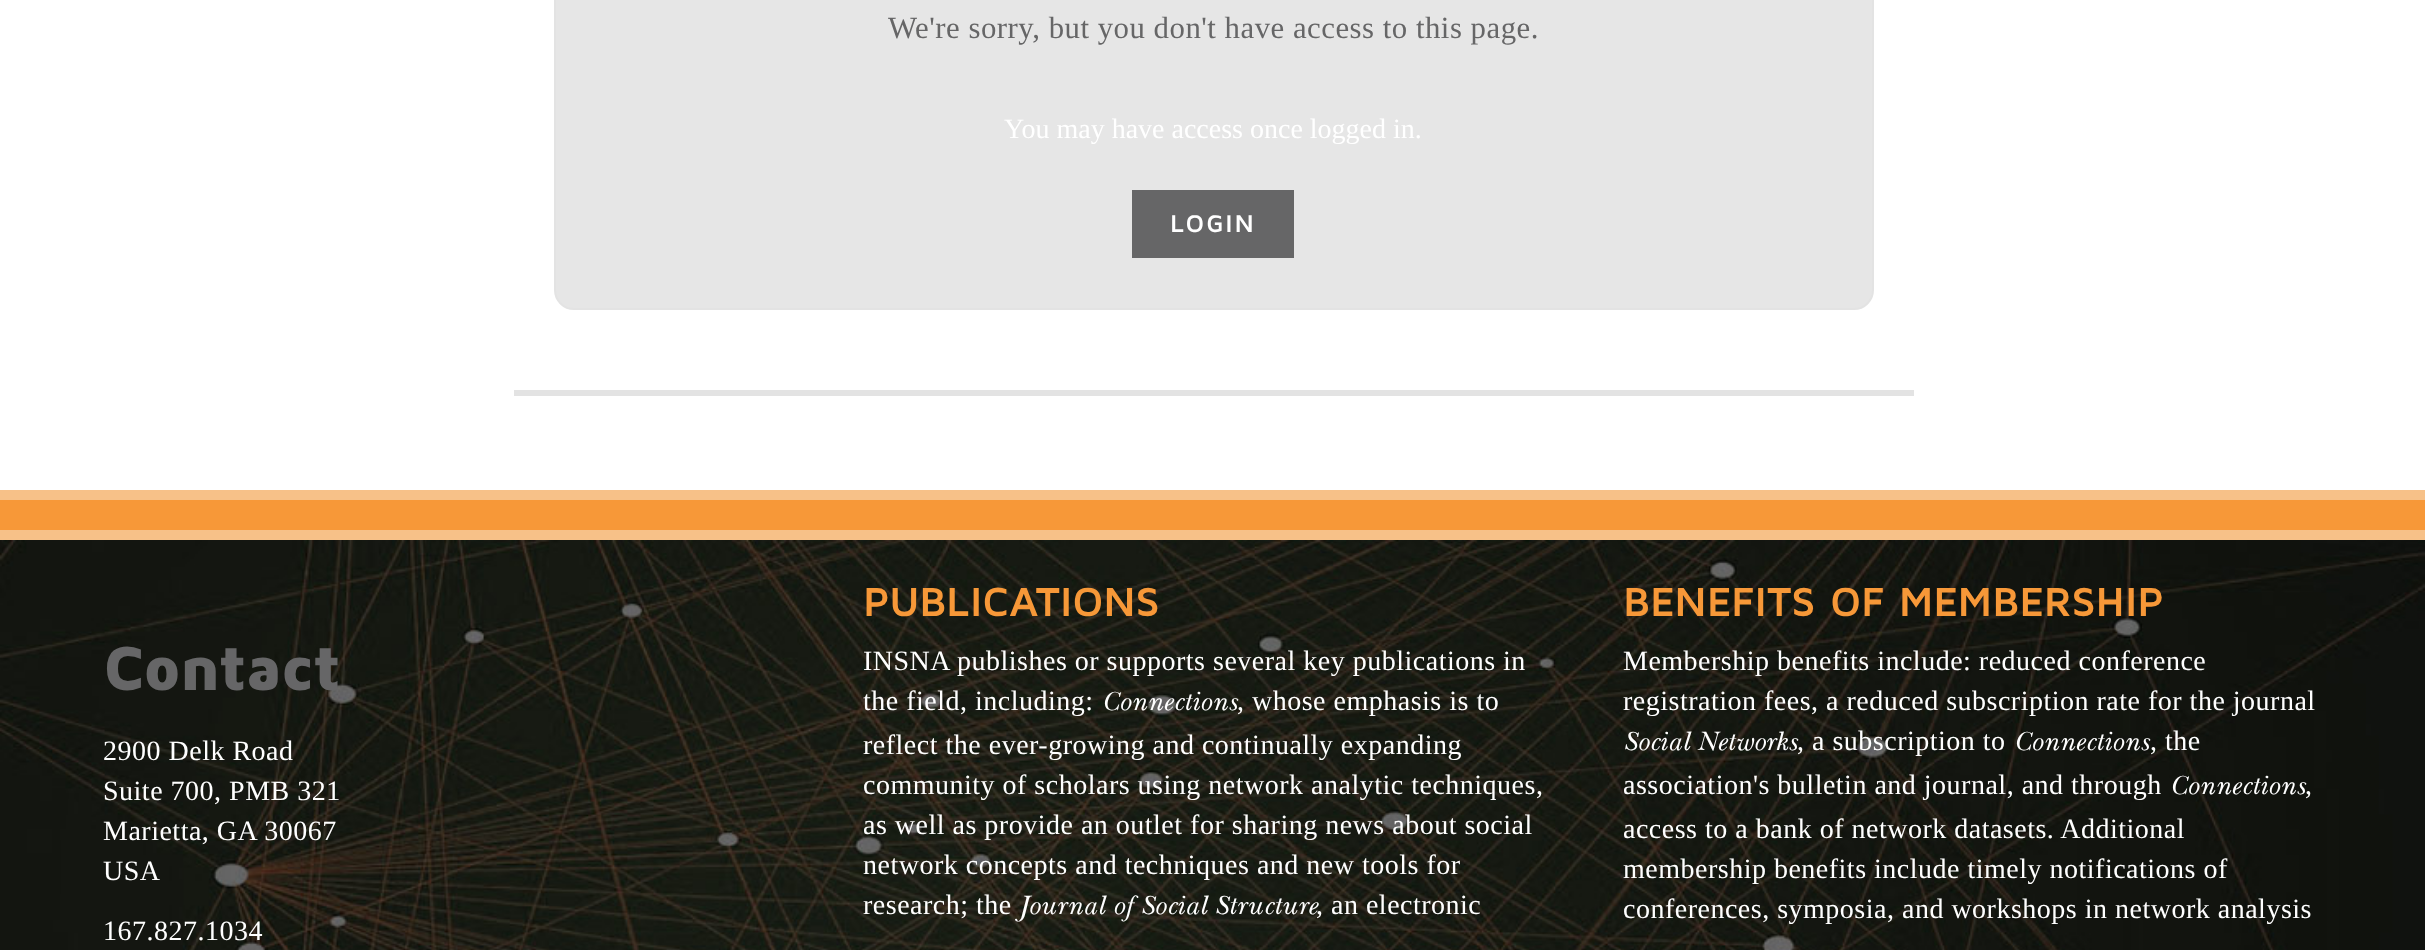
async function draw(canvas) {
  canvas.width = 2425;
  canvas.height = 950;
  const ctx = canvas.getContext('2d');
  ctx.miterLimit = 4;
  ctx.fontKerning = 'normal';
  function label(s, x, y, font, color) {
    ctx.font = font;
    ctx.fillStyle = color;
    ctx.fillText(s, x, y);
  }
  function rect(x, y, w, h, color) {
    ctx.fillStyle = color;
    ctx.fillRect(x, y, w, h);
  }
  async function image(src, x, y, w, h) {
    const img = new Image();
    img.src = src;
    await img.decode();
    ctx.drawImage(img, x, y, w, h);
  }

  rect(0, 0, 2425, 950, '#fff');
  rect(514, 390, 1400, 6, '#e3e3e3');
  ctx.fillStyle = '#e6e6e6';
  ctx.beginPath();
  ctx.roundRect(555, -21, 1318, 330, 19);
  ctx.fill();
  ctx.strokeStyle = '#e3e3e3';
  ctx.lineWidth = 2;
  ctx.stroke();
  ctx.letterSpacing = '0.5px';
  label('We\'re sorry, but you don\'t have access to this page.', 888, 38, '30.8px Liberation Serif', '#666667');
  ctx.letterSpacing = '0px';
  label('You may have access once logged in.', 1004, 138, '28px Liberation Serif', '#fff');
  rect(1132, 190, 162, 68, '#666667');
  ctx.letterSpacing = '2px';
  label('LOGIN', 1170, 232, 'bold 25px Maven Pro', '#fff');
  rect(0, 490, 2425, 10, '#f7c188');
  rect(0, 500, 2425, 30, '#f79838');
  rect(0, 530, 2425, 10, '#f7c188');
  await image('assets/img1.png', 0, 540, 2425, 410);
  ctx.letterSpacing = '0px';
  label('Contact', 103, 690, '900 64.5px Maven Pro', '#666667');
  ctx.letterSpacing = '0.5px';
  label('2900 Delk Road', 103, 760, '28px Liberation Serif', '#fff');
  label('Suite 700, PMB 321', 103, 800, '28px Liberation Serif', '#fff');
  label('Marietta, GA 30067', 103, 840, '28px Liberation Serif', '#fff');
  label('USA', 103, 880, '28px Liberation Serif', '#fff');
  label('167.827.1034', 103, 940, '28px Liberation Serif', '#fff');
  ctx.letterSpacing = '0px';
  label('PUBLICATIONS', 863, 616, 'bold 42px Maven Pro', '#f79838');
  ctx.letterSpacing = '0.5px';
  label('INSNA publishes or supports several key publications in', 863, 670, '28px Liberation Serif', '#fff');
  label('the field, including:', 863, 710, '28px Liberation Serif', '#fff');
  label('Connections', 1101, 710, 'italic 300 28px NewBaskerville', '#fff');
  label(', whose emphasis is to', 1237, 710, '28px Liberation Serif', '#fff');
  label('reflect the ever-growing and continually expanding', 863, 754, '28px Liberation Serif', '#fff');
  label('community of scholars using network analytic techniques,', 863, 794, '28px Liberation Serif', '#fff');
  label('as well as provide an outlet for sharing news about social', 863, 834, '28px Liberation Serif', '#fff');
  label('network concepts and techniques and new tools for', 863, 874, '28px Liberation Serif', '#fff');
  label('research; the', 863, 914, '28px Liberation Serif', '#fff');
  label('Journal of Social Structure', 1019, 914, 'italic 300 28px NewBaskerville', '#fff');
  label(', an electronic', 1316, 914, '28px Liberation Serif', '#fff');
  ctx.letterSpacing = '0px';
  label('BENEFITS OF MEMBERSHIP', 1623, 616, 'bold 42px Maven Pro', '#f79838');
  ctx.letterSpacing = '0.5px';
  label('Membership benefits include: reduced conference', 1623, 670, '28px Liberation Serif', '#fff');
  label('registration fees, a reduced subscription rate for the journal', 1623, 710, '28px Liberation Serif', '#fff');
  label('Social Networks', 1623, 750, 'italic 300 28px NewBaskerville', '#fff');
  label(', a subscription to', 1797, 750, '28px Liberation Serif', '#fff');
  label('Connections', 2013, 750, 'italic 300 28px NewBaskerville', '#fff');
  label(', the', 2150, 750, '28px Liberation Serif', '#fff');
  label('association\'s bulletin and journal, and through', 1623, 794, '28px Liberation Serif', '#fff');
  label('Connections', 2169, 794, 'italic 300 28px NewBaskerville', '#fff');
  label(',', 2305, 794, '28px Liberation Serif', '#fff');
  label('access to a bank of network datasets. Additional', 1623, 838, '28px Liberation Serif', '#fff');
  label('membership benefits include timely notifications of', 1623, 878, '28px Liberation Serif', '#fff');
  label('conferences, symposia, and workshops in network analysis', 1623, 918, '28px Liberation Serif', '#fff');
}

draw(document.querySelector('canvas'));
